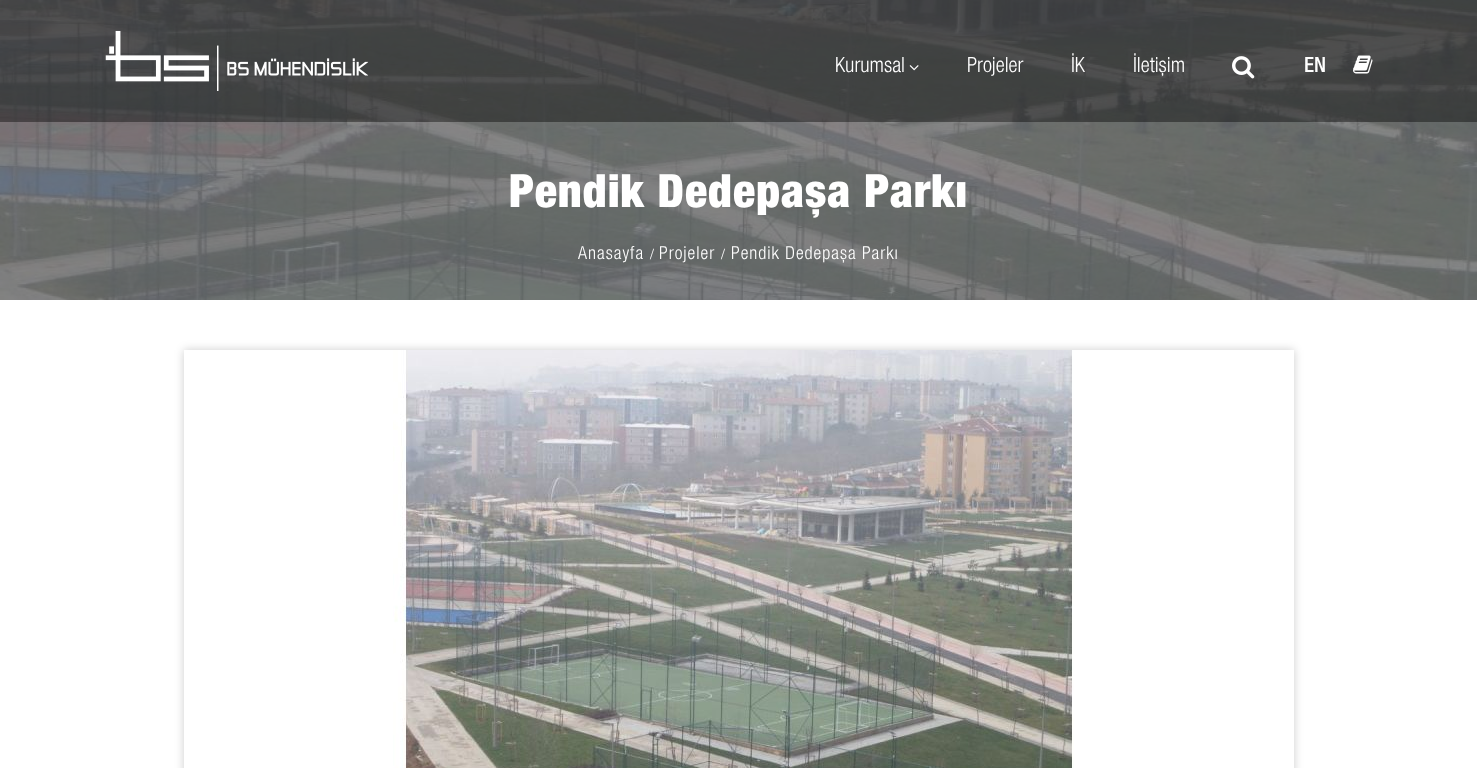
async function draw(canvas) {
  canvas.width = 1477;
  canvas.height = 768;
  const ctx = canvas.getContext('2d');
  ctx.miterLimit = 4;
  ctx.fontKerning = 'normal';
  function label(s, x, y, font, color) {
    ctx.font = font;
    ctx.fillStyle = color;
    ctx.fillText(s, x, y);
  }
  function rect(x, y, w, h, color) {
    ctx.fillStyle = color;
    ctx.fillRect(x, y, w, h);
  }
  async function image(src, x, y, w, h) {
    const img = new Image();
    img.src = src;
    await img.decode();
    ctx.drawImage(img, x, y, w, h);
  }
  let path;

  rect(0, 0, 1477, 768, '#fff');
  await image('assets/img5.png', 0, 0, 1477, 300);
  rect(0, 0, 1477, 122, '#00000066');
  await image('assets/img1.png', 105, 30, 264, 61);
  label('Kurumsal', 835, 72, '300 21px Helvetica Neue', '#fff');
  await image('assets/img2.png', 909, 65, 10, 6);
  label('Projeler', 967, 72, '300 21px Helvetica Neue', '#fff');
  label('İK', 1071, 72, '300 21px Helvetica Neue', '#fff');
  label('İletişim', 1133, 72, '300 21px Helvetica Neue', '#fff');
  await image('assets/img3.png', 1232, 56, 23, 23);
  label('EN', 1304, 72, '500 21px Helvetica Neue', '#fff');
  await image('assets/img4.png', 1353, 55, 20, 19);
  ctx.letterSpacing = '1px';
  label('Pendik Dedepaşa Parkı', 509, 207, '900 46px Helvetica Neue', '#fff');
  label('Anasayfa', 578, 259, '300 18px Helvetica Neue', '#fff');
  label('/', 650, 259, '300 14px Helvetica Neue', '#fff');
  label('Projeler', 659, 259, '300 18px Helvetica Neue', '#fff');
  label('/', 721, 259, '300 14px Helvetica Neue', '#fff');
  label('Pendik Dedepaşa Parkı', 731, 259, '300 18px Helvetica Neue', '#fff');
  ctx.save();
  path = new Path2D('M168 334H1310V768H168ZM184 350H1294V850H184Z');
  ctx.clip(path, 'evenodd');
  ctx.fillStyle = '#00000033';
  ctx.filter = 'blur(5px)';
  ctx.beginPath();
  ctx.rect(184, 350, 1110, 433);
  ctx.fill();
  ctx.filter = 'none';
  ctx.restore();
  await image('assets/img6.png', 393, 350, 681, 418);
}

draw(document.querySelector('canvas'));
